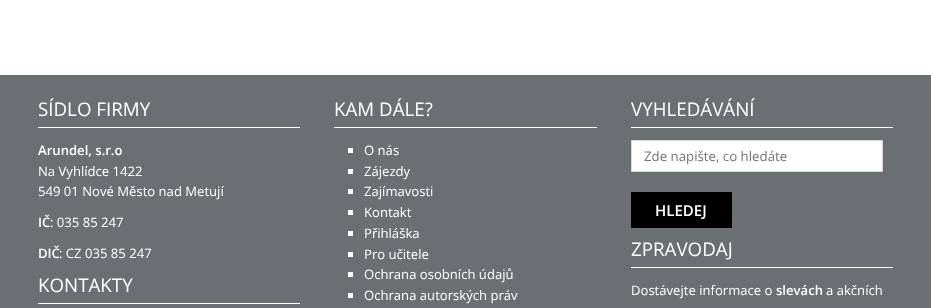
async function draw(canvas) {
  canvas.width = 931;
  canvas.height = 308;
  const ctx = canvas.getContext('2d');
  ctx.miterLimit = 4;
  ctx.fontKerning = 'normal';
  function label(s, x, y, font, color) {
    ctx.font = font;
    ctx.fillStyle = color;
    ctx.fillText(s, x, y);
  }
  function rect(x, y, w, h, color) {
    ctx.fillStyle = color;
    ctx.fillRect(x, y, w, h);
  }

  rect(0, 0, 931, 308, '#fff');
  rect(0, 75, 931, 233, '#6a7072');
  rect(38, 127, 262, 1, '#fff');
  label('SÍDLO FIRMY', 38, 116, '18.75px Open Sans', '#fff');
  label('Arundel, s.r.o', 38, 155, '600 13.1px Open Sans', '#fff');
  label('Na Vyhlídce 1422', 38, 176, '13.1px Open Sans', '#fff');
  label('549 01 Nové Město nad Metují', 38, 196, '13.1px Open Sans', '#fff');
  label('IČ', 38, 227, '600 13.1px Open Sans', '#fff');
  label(': 035 85 247', 50, 227, '13.1px Open Sans', '#fff');
  label('DIČ', 38, 258, '600 13.1px Open Sans', '#fff');
  label(': CZ 035 85 247', 59, 258, '13.1px Open Sans', '#fff');
  rect(38, 303, 262, 1, '#fff');
  label('KONTAKTY', 38, 292, '18.75px Open Sans', '#fff');
  rect(334, 127, 263, 1, '#fff');
  label('KAM DÁLE?', 334, 116, '18.75px Open Sans', '#fff');
  rect(348, 148, 5, 5, '#fff');
  label('O nás', 364, 155, '13.1px Open Sans', '#fff');
  rect(348, 169, 5, 5, '#fff');
  label('Zájezdy', 364, 176, '13.1px Open Sans', '#fff');
  rect(348, 189, 5, 5, '#fff');
  label('Zajímavosti', 364, 196, '13.1px Open Sans', '#fff');
  rect(348, 210, 5, 5, '#fff');
  label('Kontakt', 364, 217, '13.1px Open Sans', '#fff');
  rect(348, 231, 5, 5, '#fff');
  label('Přihláška', 364, 238, '13.1px Open Sans', '#fff');
  rect(348, 252, 5, 5, '#fff');
  label('Pro učitele', 364, 259, '13.1px Open Sans', '#fff');
  rect(348, 272, 5, 5, '#fff');
  label('Ochrana osobních údajů', 364, 279, '13.1px Open Sans', '#fff');
  rect(348, 293, 5, 5, '#fff');
  label('Ochrana autorských práv', 364, 300, '13.1px Open Sans', '#fff');
  rect(631, 127, 262, 1, '#fff');
  label('VYHLEDÁVÁNÍ', 631, 116, '18.75px Open Sans', '#fff');
  ctx.beginPath();
  ctx.rect(631.5, 140.5, 251, 31);
  ctx.fill();
  ctx.strokeStyle = '#d9d9d9';
  ctx.stroke();
  label('Zde napište, co hledáte', 644, 161, '13.25px Open Sans', '#757575');
  rect(631, 192, 101, 36, '#000');
  label('HLEDEJ', 655, 216, '600 15px Open Sans', '#fff');
  rect(631, 267, 262, 1, '#fff');
  label('ZPRAVODAJ', 631, 256, '18.75px Open Sans', '#fff');
  label('Dostávejte informace o', 631, 295, '13.1px Open Sans', '#fff');
  label('slevách', 776, 295, '600 13.1px Open Sans', '#fff');
  label('a akčních', 826, 295, '13.1px Open Sans', '#fff');
}

draw(document.querySelector('canvas'));
